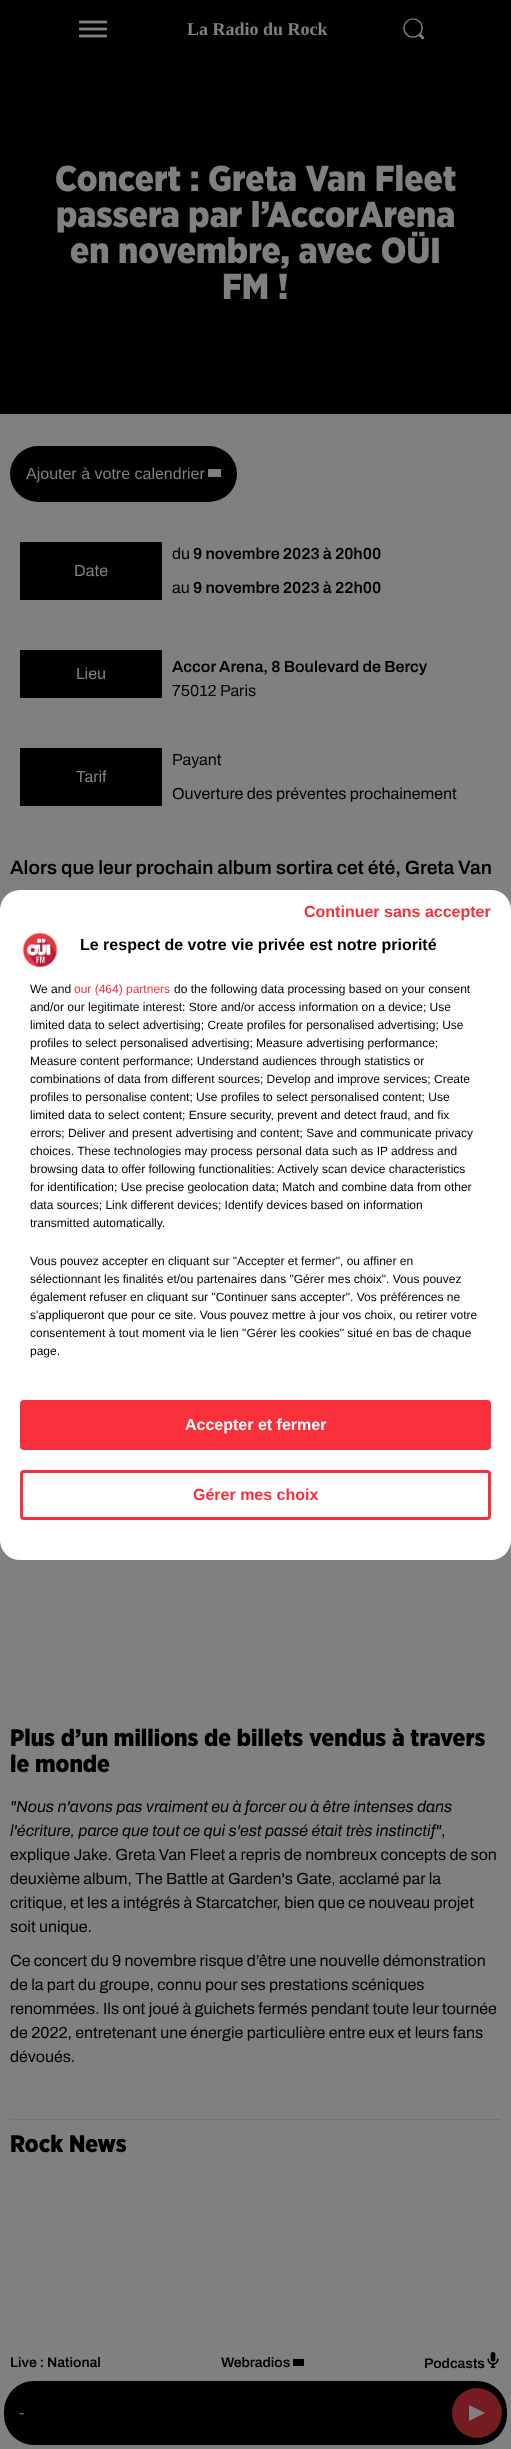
async function draw(canvas) {
  canvas.width = 511;
  canvas.height = 2449;
  const ctx = canvas.getContext('2d');
  ctx.miterLimit = 4;
  ctx.fontKerning = 'normal';
  function label(s, x, y, font, color) {
    ctx.font = font;
    ctx.fillStyle = color;
    ctx.fillText(s, x, y);
  }
  function rect(x, y, w, h, color) {
    ctx.fillStyle = color;
    ctx.fillRect(x, y, w, h);
  }
  function roundedRect(x, y, w, h, r, color) {
    ctx.fillStyle = color;
    ctx.beginPath();
    ctx.roundRect(x, y, w, h, r);
    ctx.fill();
  }
  async function image(src, x, y, w, h) {
    const img = new Image();
    img.src = src;
    await img.decode();
    ctx.drawImage(img, x, y, w, h);
  }
  let path;

  rect(0, 0, 511, 2449, '#808080');
  rect(0, 0, 511, 414, '#000');
  await image('assets/img1.png', 79, 20, 28, 18);
  label('La Radio du Rock', 187, 35, 'bold 18px Liberation Serif', '#808080');
  await image('assets/img2.png', 403, 18, 22, 22);
  label('Live : National', 10, 2367, '600 14px Archivo', '#000');
  label('Webradios', 221, 2367, '600 14px Archivo', '#000');
  rect(293, 2359, 11, 7, '#000');
  label('Podcasts', 424, 2368, '600 14px Archivo', '#000');
  await image('assets/img3.png', 487, 2352, 12, 16);
  roundedRect(4, 2381, 503, 64, 30, '#000');
  label('-', 19, 2418, '16px Liberation Sans', '#808080');
  ctx.fillStyle = '#741c21';
  ctx.beginPath();
  ctx.arc(477, 2413, 25, 0, 2 * Math.PI);
  ctx.fill();
  ctx.fillStyle = '#808080';
  path = new Path2D('M485 2413L469 2421V2405Z');
  ctx.fill(path);
  label('Concert : Greta Van Fleet', 55, 191, '900 36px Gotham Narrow', '#808080');
  label('passera par l’AccorArena', 56, 227, '900 36px Gotham Narrow', '#808080');
  label('en novembre, avec OÜI', 70, 263, '900 36px Gotham Narrow', '#808080');
  label('FM !', 222, 299, '900 36px Gotham Narrow', '#808080');
  roundedRect(10, 446, 227, 56, 28, '#000');
  label('Ajouter à votre calendrier', 26, 479, '16px Liberation Sans', '#808080');
  rect(208, 469, 13, 8, '#808080');
  rect(20, 542, 142, 58, '#000');
  label('Date', 74, 576, '16px Archivo', '#808080');
  label('du', 172, 559, '16px Archivo', '#000');
  label('9 novembre 2023 à 20h00', 193, 559, '600 16px Archivo', '#000');
  label('au', 172, 593, '16px Archivo', '#000');
  label('9 novembre 2023 à 22h00', 193, 593, '600 16px Archivo', '#000');
  rect(20, 650, 142, 48, '#000');
  label('Lieu', 76, 679, '16px Archivo', '#808080');
  label('Accor Arena, 8 Boulevard de Bercy', 172, 672, '600 16px Archivo', '#000');
  label('75012 Paris', 172, 696, '16px Archivo', '#000');
  rect(20, 748, 142, 58, '#000');
  label('Tarif', 76, 782, '16px Archivo', '#808080');
  label('Payant', 172, 765, '16px Archivo', '#000');
  label('Ouverture des préventes prochainement', 172, 799, '16px Archivo', '#000');
  label('Alors que leur prochain album sortira cet été, Greta Van', 10, 874, '600 19.2px Archivo', '#000');
  label('Plus d’un millions de billets vendus à travers', 10, 1746, '900 24px Gotham Narrow', '#000');
  label('le monde', 10, 1772, '900 24px Gotham Narrow', '#000');
  label('"Nous n\'avons pas vraiment eu à forcer ou à être intenses dans', 10, 1812, 'italic 16px Archivo', '#000');
  label('l\'écriture, parce que tout ce qui s\'est passé était très instinctif"', 10, 1836, 'italic 16px Archivo', '#000');
  label(',', 441, 1836, '16px Archivo', '#000');
  label('explique Jake. Greta Van Fleet a repris de nombreux concepts de son', 10, 1860, '16px Archivo', '#000');
  label('deuxième album, The Battle at Garden\'s Gate, acclamé par la', 10, 1884, '16px Archivo', '#000');
  label('critique, et les a intégrés à Starcatcher, bien que ce nouveau projet', 10, 1908, '16px Archivo', '#000');
  label('soit unique.', 10, 1932, '16px Archivo', '#000');
  label('Ce concert du 9 novembre risque d’être une nouvelle démonstration', 10, 1966, '16px Archivo', '#000');
  label('de la part du groupe, connu pour ses prestations scéniques', 10, 1990, '16px Archivo', '#000');
  label('renommées. Ils ont joué à guichets fermés pendant toute leur tournée', 10, 2014, '16px Archivo', '#000');
  label('de 2022, entretenant une énergie particulière entre eux et leurs fans', 10, 2038, '16px Archivo', '#000');
  label('dévoués.', 10, 2062, '16px Archivo', '#000');
  rect(10, 2119, 491, 1, '#737373');
  label('Rock News', 10, 2152, '900 24px Gotham Narrow', '#000');
  roundedRect(0, 890, 511, 670, 20, '#fff');
  ctx.save();
  ctx.beginPath();
  ctx.roundRect(0, 890, 511, 670, 20);
  ctx.clip();
  roundedRect(294, 890, 207, 44, 4, '#fff');
  ctx.restore();
  label('Continuer sans accepter', 304, 917, 'bold 16px Liberation Sans', '#f8303c');
  ctx.beginPath();
  ctx.roundRect(21.5, 1401.5, 468, 47, 2.5);
  ctx.fill();
  ctx.strokeStyle = '#f8303c';
  ctx.lineWidth = 3;
  ctx.stroke();
  label('Accepter et fermer', 185, 1430, 'bold 16px Liberation Sans', '#fff');
  ctx.beginPath();
  ctx.roundRect(21.5, 1471.5, 468, 47, 2.5);
  ctx.stroke();
  label('Gérer mes choix', 193, 1500, 'bold 16px Liberation Sans', '#f8303c');
  await image('assets/img4.png', 22, 932, 36, 36);
  label('Le respect de votre vie privée est notre priorité', 80, 950, 'bold 16px Liberation Sans', '#000');
  label('We and', 30, 993, '12px Liberation Sans', '#000');
  label('our (464) partners', 74, 993, '12px Liberation Sans', '#f8303c');
  label('do the following data processing based on your consent', 174, 993, '12px Liberation Sans', '#000');
  label('and/or our legitimate interest: Store and/or access information on a device; Use', 30, 1011, '12px Liberation Sans', '#000');
  label('limited data to select advertising; Create profiles for personalised advertising; Use', 30, 1029, '12px Liberation Sans', '#000');
  label('profiles to select personalised advertising; Measure advertising performance;', 30, 1047, '12px Liberation Sans', '#000');
  label('Measure content performance; Understand audiences through statistics or', 30, 1065, '12px Liberation Sans', '#000');
  label('combinations of data from different sources; Develop and improve services; Create', 30, 1083, '12px Liberation Sans', '#000');
  label('profiles to personalise content; Use profiles to select personalised content; Use', 30, 1101, '12px Liberation Sans', '#000');
  label('limited data to select content; Ensure security, prevent and detect fraud, and fix', 30, 1119, '12px Liberation Sans', '#000');
  label('errors; Deliver and present advertising and content; Save and communicate privacy', 30, 1137, '12px Liberation Sans', '#000');
  label('choices. These technologies may process personal data such as IP address and', 30, 1155, '12px Liberation Sans', '#000');
  label('browsing data to offer following functionalities: Actively scan device characteristics', 30, 1173, '12px Liberation Sans', '#000');
  label('for identification; Use precise geolocation data; Match and combine data from other', 30, 1191, '12px Liberation Sans', '#000');
  label('data sources; Link different devices; Identify devices based on information', 30, 1209, '12px Liberation Sans', '#000');
  label('transmitted automatically.', 30, 1227, '12px Liberation Sans', '#000');
  label('Vous pouvez accepter en cliquant sur "Accepter et fermer", ou affiner en', 30, 1265, '12px Liberation Sans', '#000');
  label('sélectionnant les finalités et/ou partenaires dans "Gérer mes choix". Vous pouvez', 30, 1283, '12px Liberation Sans', '#000');
  label('également refuser en cliquant sur "Continuer sans accepter". Vos préférences ne', 30, 1301, '12px Liberation Sans', '#000');
  label('s\'appliqueront que pour ce site. Vous pouvez mettre à jour vos choix, ou retirer votre', 30, 1319, '12px Liberation Sans', '#000');
  label('consentement à tout moment via le lien "Gérer les cookies" situé en bas de chaque', 30, 1337, '12px Liberation Sans', '#000');
  label('page.', 30, 1355, '12px Liberation Sans', '#000');
}

draw(document.querySelector('canvas'));
